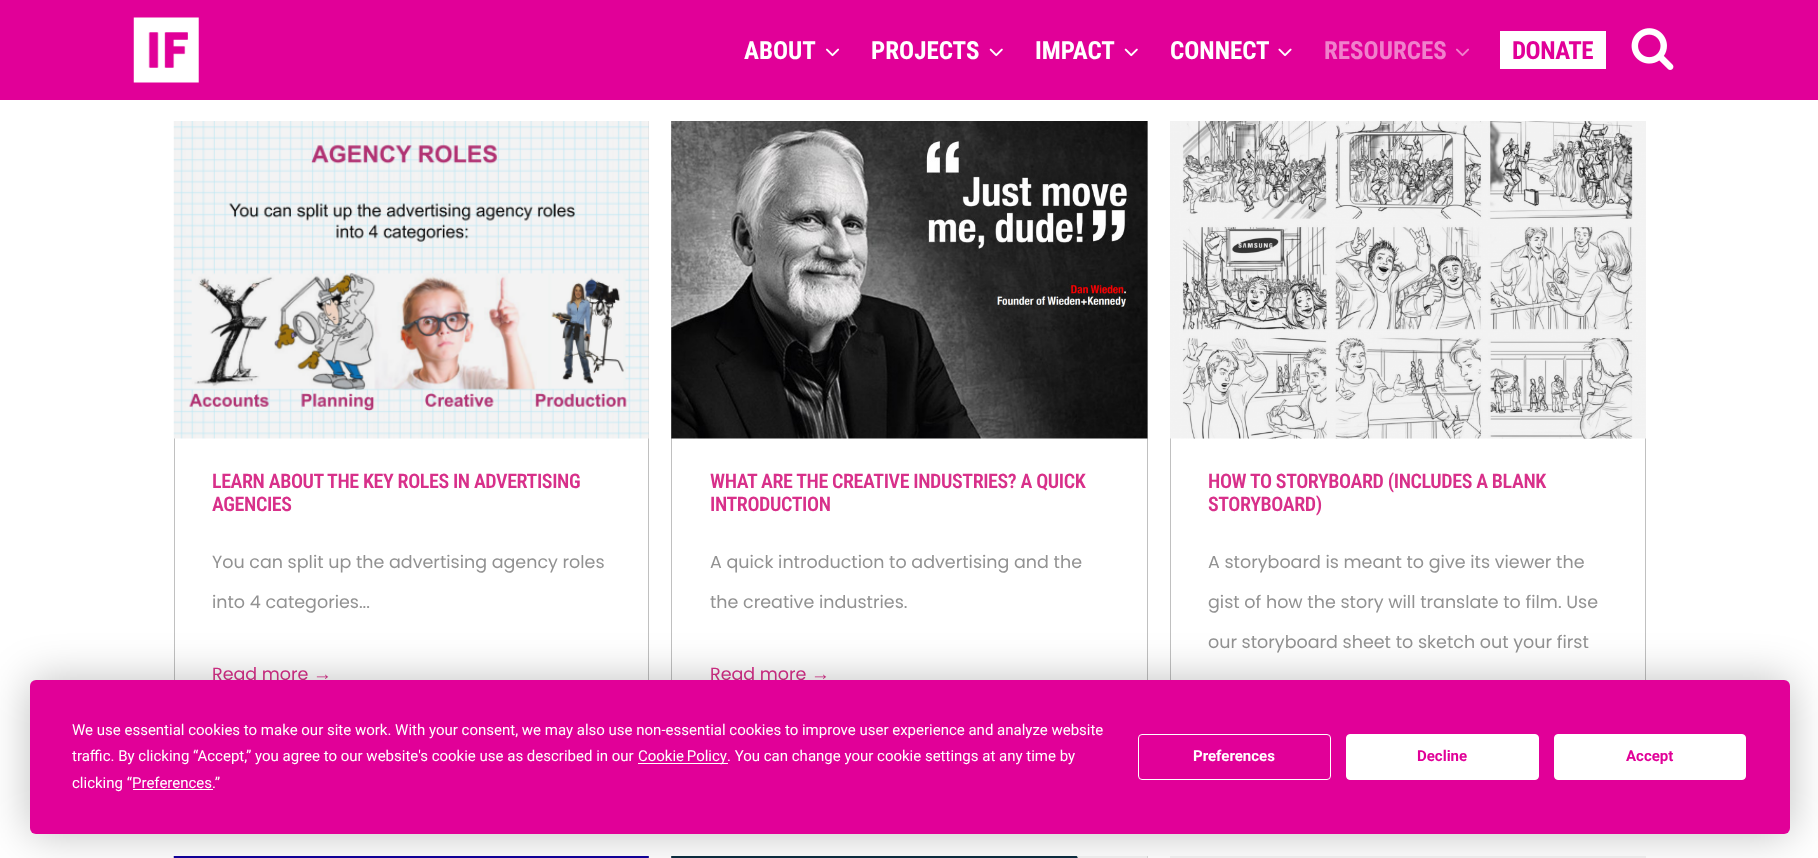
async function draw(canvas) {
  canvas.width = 1818;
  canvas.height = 858;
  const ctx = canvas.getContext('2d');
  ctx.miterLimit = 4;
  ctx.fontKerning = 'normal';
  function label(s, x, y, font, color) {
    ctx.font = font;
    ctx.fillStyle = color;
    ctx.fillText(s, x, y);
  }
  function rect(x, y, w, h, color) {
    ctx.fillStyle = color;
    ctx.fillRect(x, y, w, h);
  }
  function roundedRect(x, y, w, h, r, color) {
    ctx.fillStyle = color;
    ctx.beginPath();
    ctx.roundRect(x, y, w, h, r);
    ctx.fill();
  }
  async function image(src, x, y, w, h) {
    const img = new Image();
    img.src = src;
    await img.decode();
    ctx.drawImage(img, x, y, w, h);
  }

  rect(0, 0, 1818, 858, '#fff');
  rect(0, 0, 1818, 100, '#e10098');
  await image('assets/img1.png', 133, 17, 66, 66);
  label('ABOUT', 744, 59, 'bold 25px Roboto Condensed', '#fff');
  await image('assets/img2.png', 826, 48, 13, 9);
  label('PROJECTS', 871, 59, 'bold 25px Roboto Condensed', '#fff');
  await image('assets/img3.png', 989, 48, 14, 9);
  label('IMPACT', 1035, 59, 'bold 25px Roboto Condensed', '#fff');
  await image('assets/img3.png', 1124, 48, 14, 9);
  label('CONNECT', 1170, 59, 'bold 25px Roboto Condensed', '#fff');
  await image('assets/img4.png', 1278, 48, 14, 9);
  label('RESOURCES', 1324, 59, 'bold 25px Roboto Condensed', '#f080cc');
  await image('assets/img5.png', 1456, 48, 13, 9);
  rect(1500, 31, 106, 38, '#fff');
  ctx.letterSpacing = '-0.5px';
  label('DONATE', 1512, 59, 'bold 25px Roboto Condensed', '#e10098');
  await image('assets/img6.png', 1631, 28, 43, 42);
  ctx.strokeStyle = '#c0c0c0';
  ctx.strokeRect(174.5, 121.5, 474, 697);
  await image('assets/img7.png', 173, 121, 476, 318);
  ctx.letterSpacing = '-0.4px';
  label('LEARN ABOUT THE KEY ROLES IN ADVERTISING', 212, 488, '600 20px Roboto Condensed', '#d8308a');
  label('AGENCIES', 212, 511, '600 20px Roboto Condensed', '#d8308a');
  ctx.letterSpacing = '0px';
  label('You can split up the advertising agency roles', 212, 568, '17.5px Poppins', '#929292');
  label('into 4 categories...', 212, 608, '17.5px Poppins', '#929292');
  label('Read more', 212, 680, '17.5px Poppins', '#d8308a');
  label('→', 313, 680, '19px Liberation Sans', '#d8308a');
  ctx.strokeRect(671.5, 121.5, 476, 697);
  await image('assets/img8.png', 671, 121, 477, 318);
  ctx.letterSpacing = '-0.4px';
  label('WHAT ARE THE CREATIVE INDUSTRIES? A QUICK', 710, 488, '600 20px Roboto Condensed', '#d8308a');
  label('INTRODUCTION', 710, 511, '600 20px Roboto Condensed', '#d8308a');
  ctx.letterSpacing = '0px';
  label('A quick introduction to advertising and the', 710, 568, '17.5px Poppins', '#929292');
  label('the creative industries.', 710, 608, '17.5px Poppins', '#929292');
  label('Read more', 710, 680, '17.5px Poppins', '#d8308a');
  label('→', 811, 680, '19px Liberation Sans', '#d8308a');
  ctx.strokeRect(1170.5, 121.5, 475, 697);
  await image('assets/img9.png', 1170, 121, 476, 318);
  ctx.letterSpacing = '-0.4px';
  label('HOW TO STORYBOARD (INCLUDES A BLANK', 1208, 488, '600 20px Roboto Condensed', '#d8308a');
  label('STORYBOARD)', 1208, 511, '600 20px Roboto Condensed', '#d8308a');
  ctx.letterSpacing = '0px';
  label('A storyboard is meant to give its viewer the', 1208, 568, '17.5px Poppins', '#929292');
  label('gist of how the story will translate to film. Use', 1208, 608, '17.5px Poppins', '#929292');
  label('our storyboard sheet to sketch out your first', 1208, 648, '17.5px Poppins', '#929292');
  ctx.strokeRect(174.5, 856.5, 474, 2);
  await image('assets/img10.png', 173, 856, 476, 2);
  ctx.strokeRect(671.5, 856.5, 476, 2);
  await image('assets/img11.png', 671, 856, 477, 2);
  rect(1170, 856, 476, 2, '#f3f3f3');
  ctx.fillStyle = '#00000040';
  ctx.filter = 'blur(22px)';
  ctx.beginPath();
  ctx.roundRect(30, 680, 1760, 154, 6);
  ctx.fill();
  ctx.filter = 'none';
  roundedRect(30, 680, 1760, 154, 6, '#e10098');
  label('We use essential cookies to make our site work. With your consent, we may also use non-essential cookies to improve user experience and analyze website', 72, 735, '15px Roboto', '#fff');
  label('traffic. By clicking “Accept,” you agree to our website\'s cookie use as described in our', 72, 761, '15px Roboto', '#fff');
  rect(638, 763, 90, 1, '#fff');
  ctx.wordSpacing = '-1px';
  label('Cookie Policy', 638, 761, '15px Roboto', '#fff');
  ctx.wordSpacing = '0px';
  label('. You can change your cookie settings at any time by', 727, 761, '15px Roboto', '#fff');
  label('clicking “Preferences.”', 72, 788, '15px Roboto', '#fff');
  rect(133, 789, 80, 1, '#fff');
  ctx.beginPath();
  ctx.roundRect(1138.5, 734.5, 192, 45, 3.5);
  ctx.strokeStyle = '#fff';
  ctx.stroke();
  label('Preferences', 1193, 761, 'bold 15px Roboto', '#fff');
  ctx.beginPath();
  ctx.roundRect(1346.5, 734.5, 192, 45, 3.5);
  ctx.fill();
  ctx.stroke();
  label('Decline', 1417, 761, 'bold 15px Roboto', '#e10098');
  ctx.fillStyle = '#fff';
  ctx.beginPath();
  ctx.roundRect(1554.5, 734.5, 191, 45, 3.5);
  ctx.fill();
  ctx.stroke();
  label('Accept', 1626, 761, 'bold 15px Roboto', '#e10098');
}

draw(document.querySelector('canvas'));
